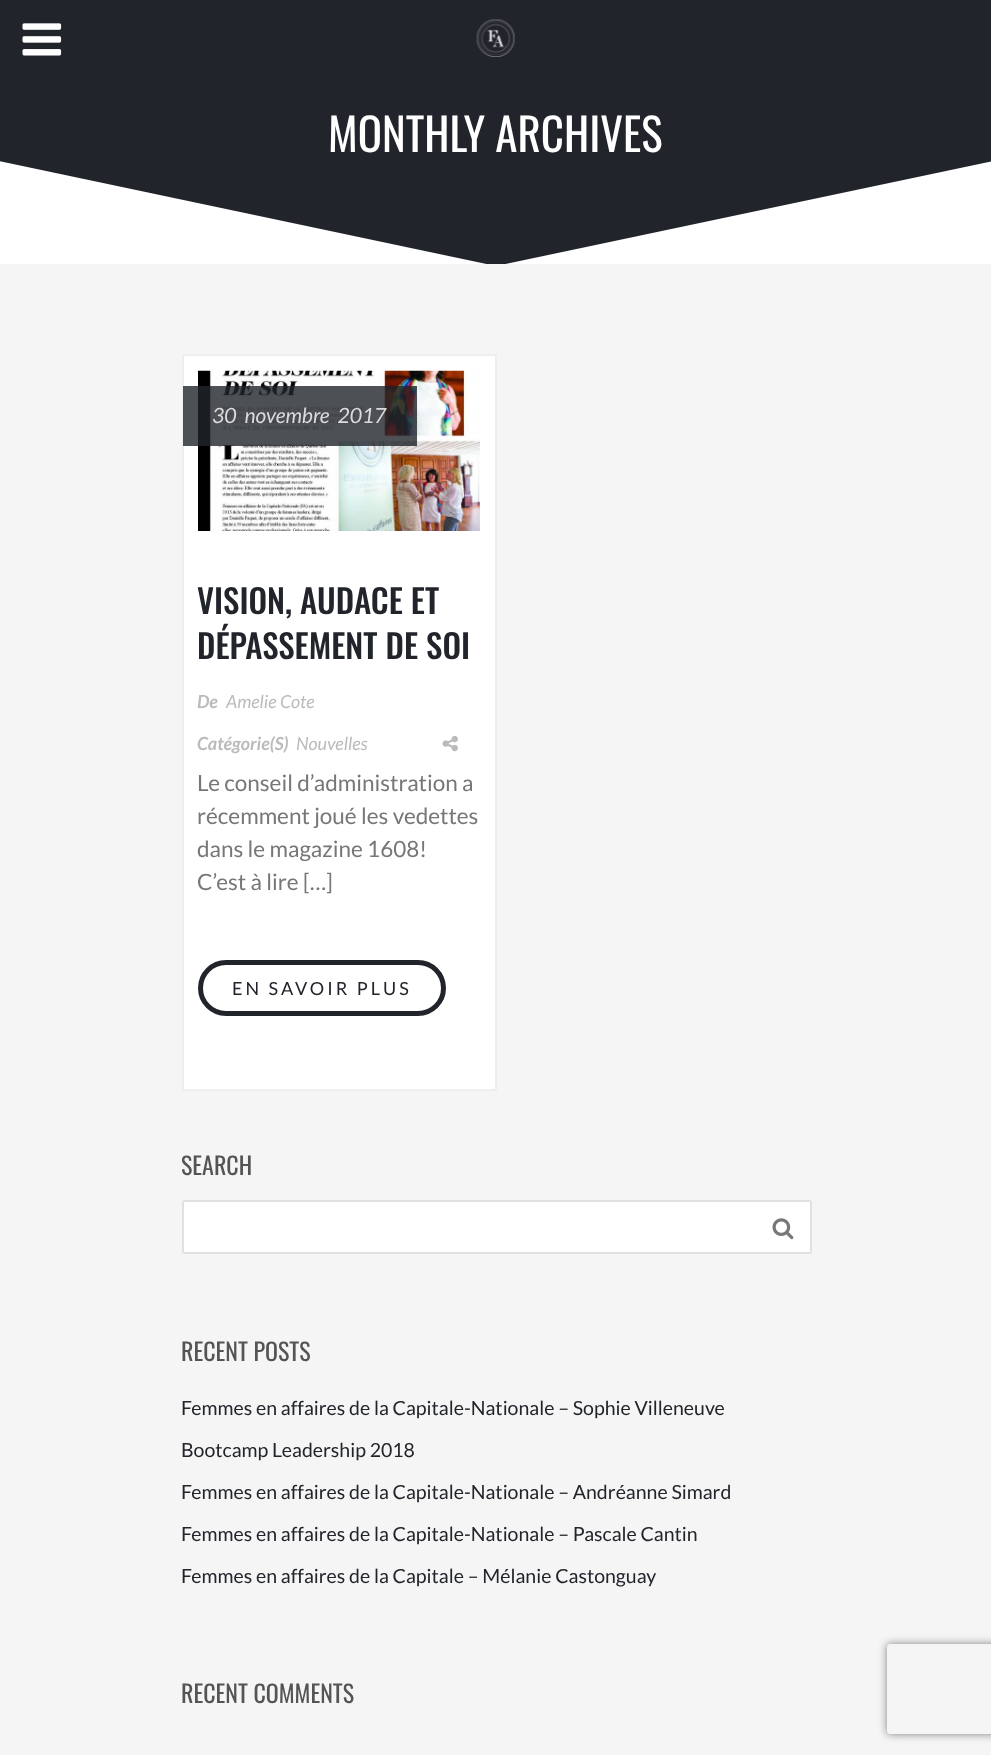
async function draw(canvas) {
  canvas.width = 991;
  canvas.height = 1755;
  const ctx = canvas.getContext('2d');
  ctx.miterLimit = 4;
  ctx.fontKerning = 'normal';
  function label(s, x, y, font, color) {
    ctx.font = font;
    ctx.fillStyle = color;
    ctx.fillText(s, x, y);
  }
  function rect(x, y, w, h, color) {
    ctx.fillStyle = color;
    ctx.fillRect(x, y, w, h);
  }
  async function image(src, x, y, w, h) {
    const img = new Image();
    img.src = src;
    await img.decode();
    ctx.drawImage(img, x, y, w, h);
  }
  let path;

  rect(0, 0, 991, 1755, '#f5f5f5');
  rect(0, 0, 991, 264, '#21242a');
  await image('assets/img1.png', 22, 23, 40, 33);
  await image('assets/img2.png', 476, 19, 39, 38);
  label('MONTHLY ARCHIVES', 328, 152, '45px Oswald', '#fff');
  ctx.save();
  ctx.beginPath();
  ctx.rect(0, 0, 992, 264);
  ctx.clip();
  path = new Path2D('M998 160V266H496Z');
  ctx.fill(path);
  path = new Path2D('M-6 266V160L496 266Z');
  ctx.fill(path);
  ctx.restore();
  ctx.beginPath();
  ctx.rect(183, 355, 313, 735);
  ctx.fill();
  ctx.strokeStyle = '#eee';
  ctx.lineWidth = 2;
  ctx.stroke();
  await image('assets/img3.png', 198, 370, 282, 161);
  rect(183, 386, 234, 60, '#21242acc');
  ctx.wordSpacing = '4px';
  label('30 novembre 2017', 212, 423, 'italic 21px Lato', '#dbdbdc');
  ctx.wordSpacing = '0px';
  label('VISION, AUDACE ET', 197, 614, '500 33px Oswald', '#21242a');
  label('DÉPASSEMENT DE SOI', 197, 659, '500 33px Oswald', '#21242a');
  label('De', 197, 708, 'italic bold 18px Lato', '#bbb');
  label('Amelie Cote', 226, 708, 'italic 18px Lato', '#bbb');
  label('Catégorie(S)', 197, 750, 'italic bold 18px Lato', '#bbb');
  label('Nouvelles', 296, 750, 'italic 18px Lato', '#bbb');
  await image('assets/img4.png', 442, 735, 16, 17);
  label('Le conseil d’administration a', 197, 791, '22.5px Lato', '#777');
  label('récemment joué les vedettes', 197, 824, '22.5px Lato', '#777');
  label('dans le magazine 1608!', 197, 857, '22.5px Lato', '#777');
  label('C’est à lire […]', 197, 890, '22.5px Lato', '#777');
  ctx.beginPath();
  ctx.roundRect(200.5, 962.5, 243, 51, 25.5);
  ctx.strokeStyle = '#21242a';
  ctx.lineWidth = 5;
  ctx.stroke();
  ctx.letterSpacing = '3px';
  label('EN SAVOIR PLUS', 232, 995, '18px Lato', '#21242a');
  ctx.letterSpacing = '0px';
  label('SEARCH', 181, 1175, '24px Oswald', '#545454');
  ctx.fillStyle = '#fff';
  ctx.beginPath();
  ctx.roundRect(183, 1201, 628, 52, 2);
  ctx.fill();
  ctx.strokeStyle = '#e1e1e1';
  ctx.lineWidth = 2;
  ctx.stroke();
  await image('assets/img5.png', 772, 1218, 22, 22);
  label('RECENT POSTS', 181, 1361, '24px Oswald', '#545454');
  label('Femmes en affaires de la Capitale-Nationale – Sophie Villeneuve', 181, 1415, '19.5px Lato', '#21242a');
  label('Bootcamp Leadership 2018', 181, 1457, '19.5px Lato', '#21242a');
  label('Femmes en affaires de la Capitale-Nationale – Andréanne Simard', 181, 1499, '19.5px Lato', '#21242a');
  label('Femmes en affaires de la Capitale-Nationale – Pascale Cantin', 181, 1541, '19.5px Lato', '#21242a');
  label('Femmes en affaires de la Capitale – Mélanie Castonguay', 181, 1583, '19.5px Lato', '#21242a');
  label('RECENT COMMENTS', 181, 1703, '24px Oswald', '#545454');
  ctx.save();
  path = new Path2D('M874 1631H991V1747H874ZM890 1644H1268C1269.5 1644 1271 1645.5 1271 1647V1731C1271 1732.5 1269.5 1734 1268 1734H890C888.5 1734 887 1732.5 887 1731V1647C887 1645.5 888.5 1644 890 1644Z');
  ctx.clip(path, 'evenodd');
  ctx.fillStyle = '#808080';
  ctx.filter = 'blur(4px)';
  ctx.beginPath();
  ctx.roundRect(887, 1644, 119, 90, 3);
  ctx.fill();
  ctx.filter = 'none';
  ctx.restore();
}

draw(document.querySelector('canvas'));
